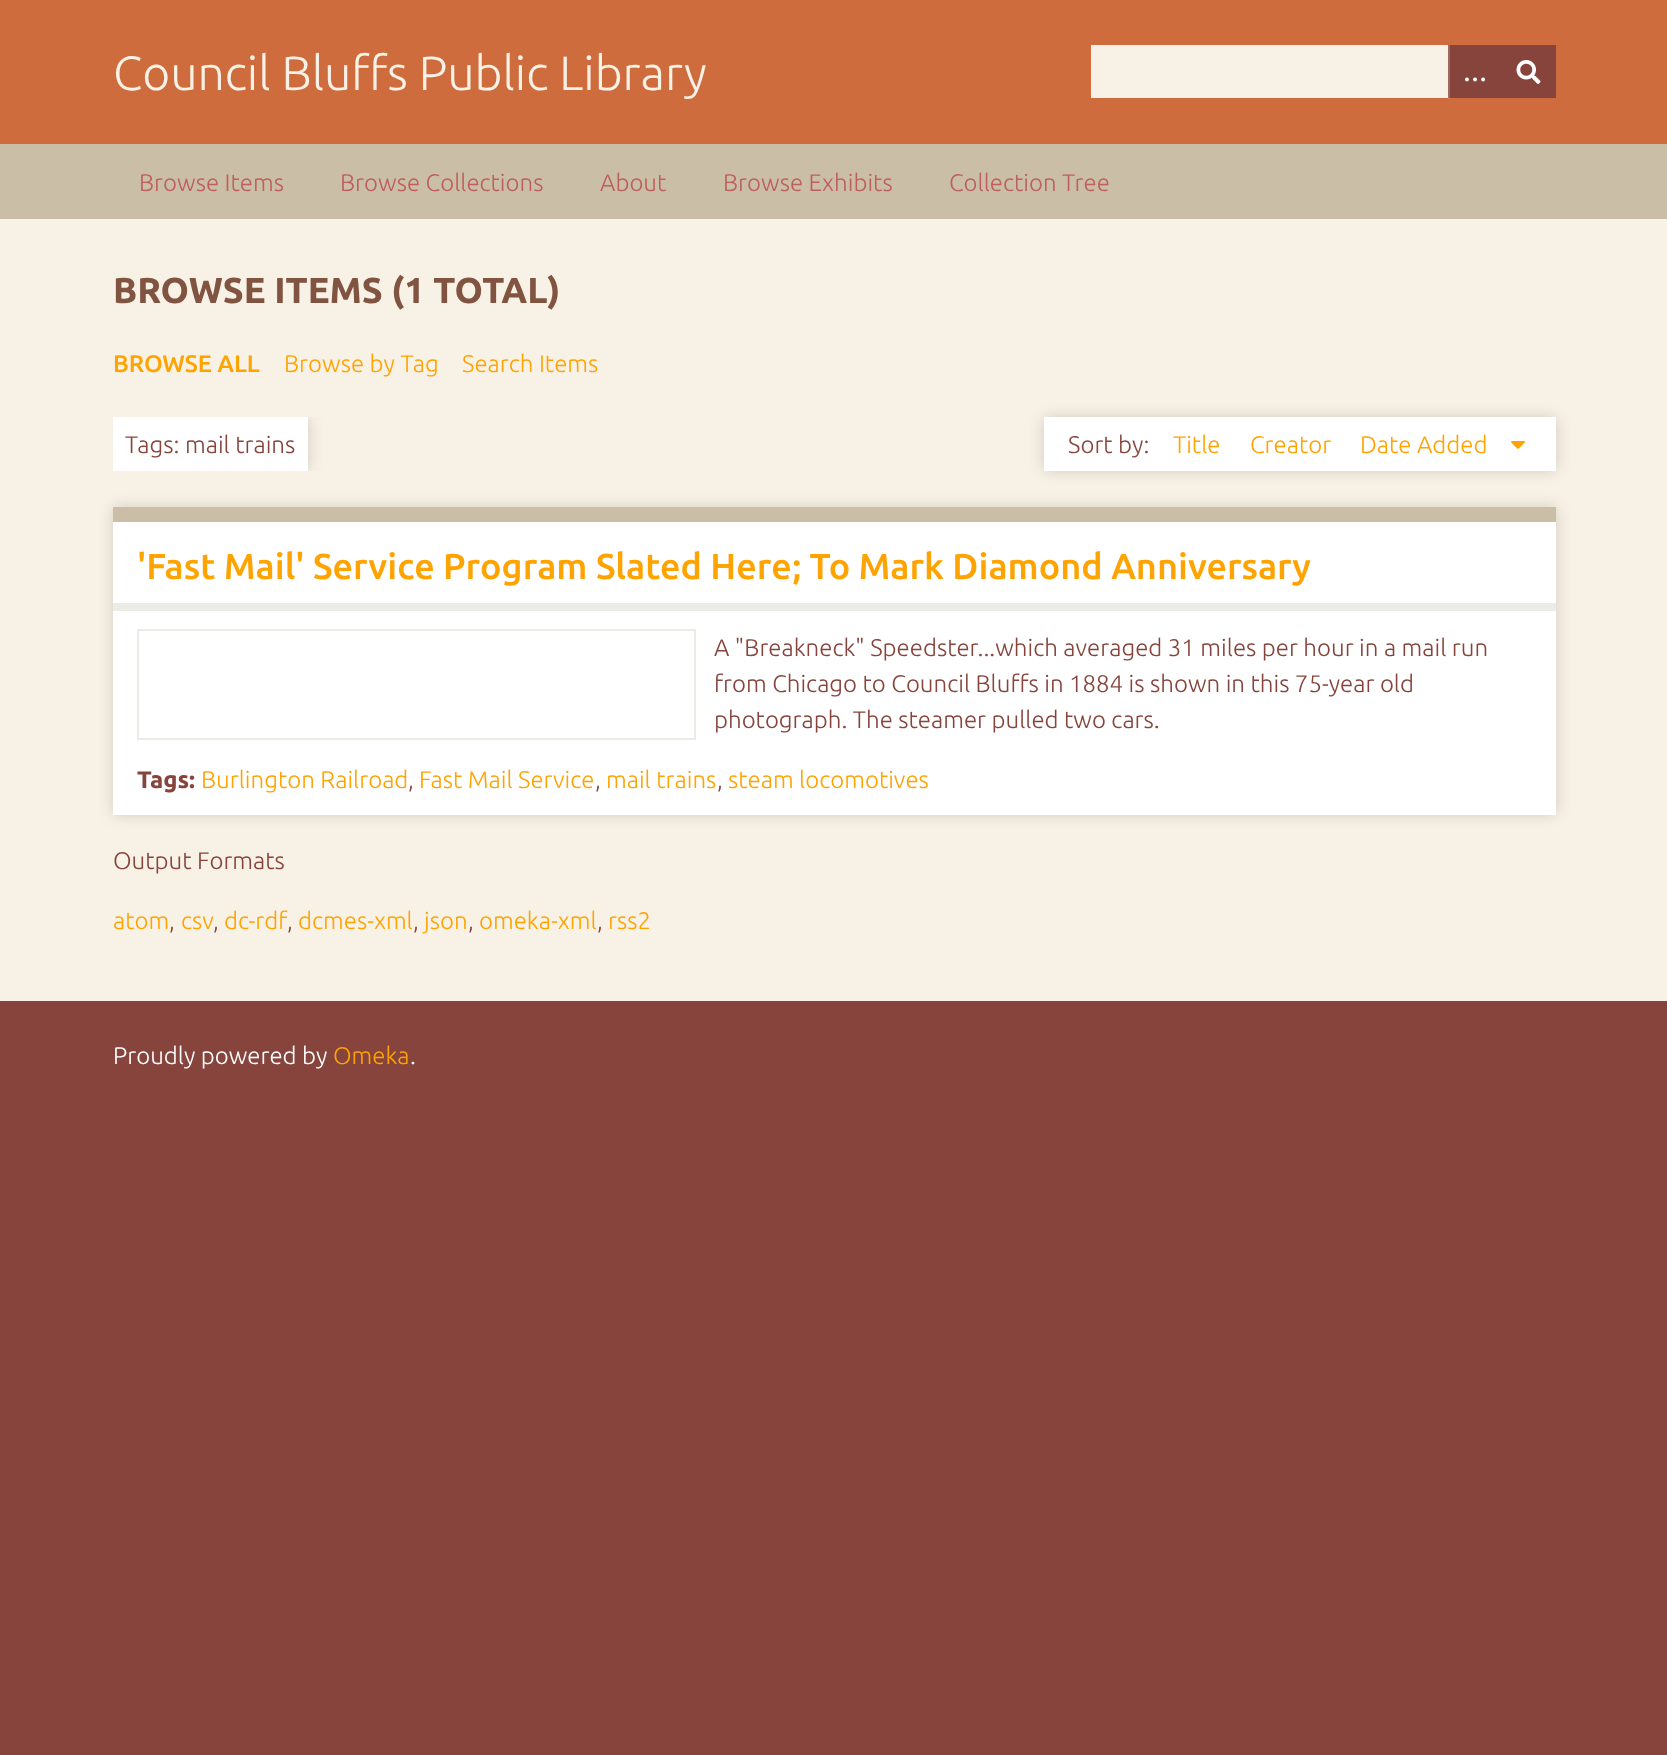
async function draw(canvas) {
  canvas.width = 1667;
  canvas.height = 1755;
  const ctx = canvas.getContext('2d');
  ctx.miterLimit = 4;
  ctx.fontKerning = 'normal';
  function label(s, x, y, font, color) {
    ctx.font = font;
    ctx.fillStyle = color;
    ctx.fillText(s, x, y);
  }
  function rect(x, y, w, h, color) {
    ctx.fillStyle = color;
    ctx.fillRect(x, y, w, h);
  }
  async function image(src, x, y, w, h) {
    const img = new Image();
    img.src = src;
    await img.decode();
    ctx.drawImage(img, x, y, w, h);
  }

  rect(0, 0, 1667, 1755, '#86443c');
  rect(0, 0, 1667, 144, '#ce6c3e');
  rect(1448, 98, 2, 1, '#d88965');
  label('Council Bluffs Public Library', 113, 90, '300 48px Ubuntu', '#f8f1e5');
  rect(1091, 45, 357, 53, '#f8f1e5');
  rect(1450, 45, 106, 53, '#86443c');
  rect(1448, 45, 2, 53, '#9e6963');
  label('…', 1463, 81, 'bold 24px Liberation Serif', '#fff');
  await image('assets/img1.png', 1516, 60, 25, 24);
  rect(0, 144, 1667, 75, '#cabfa6');
  label('Browse Items', 139, 191, '300 24px Ubuntu', '#be5e5e');
  label('Browse Collections', 340, 191, '300 24px Ubuntu', '#be5e5e');
  label('About', 600, 191, '300 24px Ubuntu', '#be5e5e');
  label('Browse Exhibits', 723, 191, '300 24px Ubuntu', '#be5e5e');
  label('Collection Tree', 949, 191, '300 24px Ubuntu', '#be5e5e');
  rect(0, 219, 1667, 782, '#f8f1e5');
  label('BROWSE ITEMS (1 TOTAL)', 113, 303, 'bold 36px Ubuntu', '#815442');
  label('BROWSE ALL', 113, 372, '500 24px Ubuntu', '#ffa300');
  label('Browse by Tag', 284, 372, '300 24px Ubuntu', '#ffa300');
  label('Search Items', 462, 372, '300 24px Ubuntu', '#ffa300');
  ctx.save();
  ctx.beginPath();
  ctx.rect(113, 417, 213, 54);
  ctx.clip();
  ctx.fillStyle = '#00000026';
  ctx.filter = 'blur(7.5px)';
  ctx.beginPath();
  ctx.rect(113, 417, 195, 54);
  ctx.fill();
  ctx.filter = 'none';
  ctx.restore();
  rect(113, 417, 195, 54, '#fff');
  label('Tags: mail trains', 125, 453, '300 24px Ubuntu', '#86443c');
  ctx.fillStyle = '#00000026';
  ctx.filter = 'blur(7.5px)';
  ctx.beginPath();
  ctx.rect(1044, 417, 512, 54);
  ctx.fill();
  ctx.filter = 'none';
  rect(1044, 417, 512, 54, '#fff');
  label('Sort by:', 1068, 453, '300 24px Ubuntu', '#86443c');
  label('Title', 1173, 453, '300 24px Ubuntu', '#ffa300');
  label('Creator', 1250, 453, '300 24px Ubuntu', '#ffa300');
  label('Date Added', 1360, 453, '300 24px Ubuntu', '#ffa300');
  await image('assets/img2.png', 1511, 441, 14, 8);
  ctx.fillStyle = '#00000026';
  ctx.filter = 'blur(7.5px)';
  ctx.beginPath();
  ctx.rect(113, 507, 1443, 308);
  ctx.fill();
  ctx.filter = 'none';
  rect(113, 522, 1443, 293, '#fff');
  rect(113, 507, 1443, 15, '#cabfa6');
  rect(113, 603, 1443, 8, '#ecebe6');
  label('\'Fast Mail\' Service Program Slated Here; To Mark Diamond Anniversary', 137, 579, '500 36px Ubuntu', '#ffa300');
  ctx.strokeStyle = '#ecebe6';
  ctx.lineWidth = 2;
  ctx.strokeRect(138, 630, 557, 109);
  label('A "Breakneck" Speedster...which averaged 31 miles per hour in a mail run', 714, 656, '300 24px Ubuntu', '#86443c');
  label('from Chicago to Council Bluffs in 1884 is shown in this 75-year old', 714, 692, '300 24px Ubuntu', '#86443c');
  label('photograph. The steamer pulled two cars.', 714, 728, '300 24px Ubuntu', '#86443c');
  label('Tags:', 137, 788, 'bold 24px Ubuntu', '#86443c');
  label('Burlington Railroad', 201, 788, '300 24px Ubuntu', '#ffa300');
  label(',', 408, 788, '300 24px Ubuntu', '#86443c');
  label('Fast Mail Service', 419, 788, '300 24px Ubuntu', '#ffa300');
  label(',', 595, 788, '300 24px Ubuntu', '#86443c');
  label('mail trains', 606, 788, '300 24px Ubuntu', '#ffa300');
  label(',', 717, 788, '300 24px Ubuntu', '#86443c');
  label('steam locomotives', 728, 788, '300 24px Ubuntu', '#ffa300');
  label('Output Formats', 113, 869, '300 24px Ubuntu', '#86443c');
  label('atom', 113, 929, '300 24px Ubuntu', '#ffa300');
  label(',', 169, 929, '300 24px Ubuntu', '#86443c');
  label('csv', 181, 929, '300 24px Ubuntu', '#ffa300');
  label(',', 213, 929, '300 24px Ubuntu', '#86443c');
  label('dc-rdf', 224, 929, '300 24px Ubuntu', '#ffa300');
  label(',', 287, 929, '300 24px Ubuntu', '#86443c');
  label('dcmes-xml', 298, 929, '300 24px Ubuntu', '#ffa300');
  label(',', 413, 929, '300 24px Ubuntu', '#86443c');
  label('json', 424, 929, '300 24px Ubuntu', '#ffa300');
  label(',', 468, 929, '300 24px Ubuntu', '#86443c');
  label('omeka-xml', 479, 929, '300 24px Ubuntu', '#ffa300');
  label(',', 597, 929, '300 24px Ubuntu', '#86443c');
  label('rss2', 608, 929, '300 24px Ubuntu', '#ffa300');
  label('Proudly powered by', 113, 1064, '300 24px Ubuntu', '#fff');
  label('Omeka', 333, 1064, '300 24px Ubuntu', '#ffa300');
  label('.', 410, 1064, '300 24px Ubuntu', '#fff');
}

draw(document.querySelector('canvas'));
